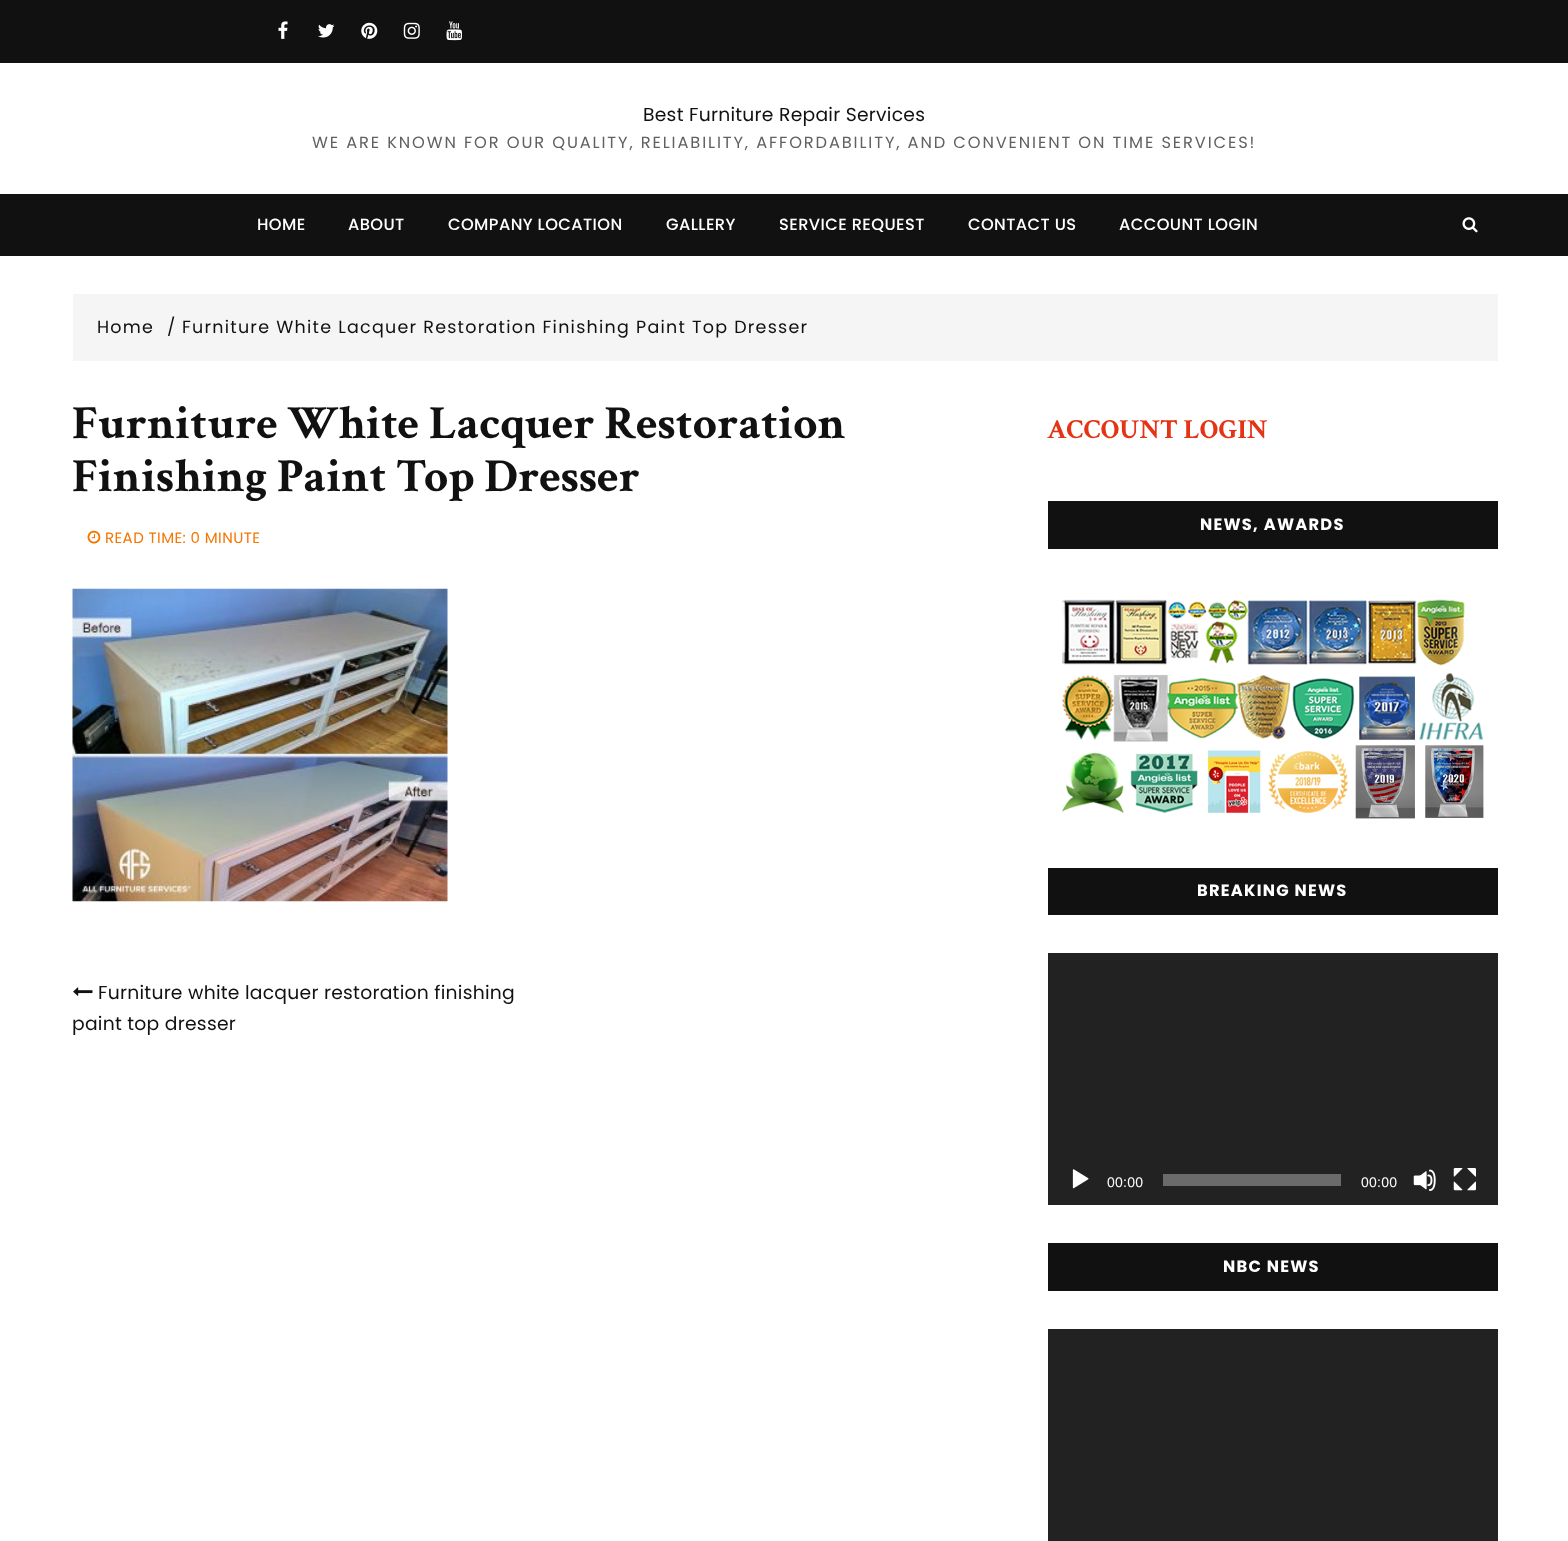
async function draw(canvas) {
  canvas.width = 1568;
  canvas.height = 1541;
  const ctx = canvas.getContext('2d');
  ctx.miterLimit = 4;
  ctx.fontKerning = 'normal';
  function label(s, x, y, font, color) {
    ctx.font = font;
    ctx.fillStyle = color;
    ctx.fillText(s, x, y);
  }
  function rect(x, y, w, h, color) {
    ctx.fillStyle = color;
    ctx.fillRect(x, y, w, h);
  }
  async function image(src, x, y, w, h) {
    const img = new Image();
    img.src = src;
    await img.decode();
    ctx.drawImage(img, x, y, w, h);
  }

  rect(0, 0, 1568, 1541, '#fff');
  rect(0, 0, 1568, 63, '#111');
  await image('assets/img1.png', 278, 21, 10, 18);
  await image('assets/img2.png', 318, 24, 17, 14);
  await image('assets/img3.png', 361, 22, 17, 17);
  await image('assets/img4.png', 403, 22, 17, 17);
  await image('assets/img5.png', 446, 21, 17, 20);
  ctx.letterSpacing = '0.25px';
  label('Best Furniture Repair Services', 643, 121, '18.75px Poppins', '#111');
  ctx.letterSpacing = '1.88px';
  label('WE ARE KNOWN FOR OUR QUALITY, RELIABILITY, AFFORDABILITY, AND CONVENIENT ON TIME SERVICES!', 312, 148, '16.25px Poppins', '#616161');
  rect(0, 194, 1568, 62, '#111');
  ctx.letterSpacing = '0.4px';
  label('HOME', 257, 230, '500 16.25px Poppins', '#fff');
  label('ABOUT', 348, 230, '500 16.25px Poppins', '#fff');
  label('COMPANY LOCATION', 448, 230, '500 16.25px Poppins', '#fff');
  label('GALLERY', 666, 230, '500 16.25px Poppins', '#fff');
  label('SERVICE REQUEST', 779, 230, '500 16.25px Poppins', '#fff');
  label('CONTACT US', 968, 230, '500 16.25px Poppins', '#fff');
  label('ACCOUNT LOGIN', 1119, 230, '500 16.25px Poppins', '#fff');
  await image('assets/img6.png', 1462, 217, 16, 16);
  rect(73, 294, 1425, 67, '#f5f5f5');
  ctx.letterSpacing = '1.25px';
  label('Home', 97, 333, '17.5px Poppins', '#111');
  label('/', 167, 333, '17.5px Poppins', '#111');
  label('Furniture White Lacquer Restoration Finishing Paint Top Dresser', 182, 333, '17.5px Poppins', '#111');
  ctx.letterSpacing = '0px';
  label('Furniture White Lacquer Restoration', 72, 438, 'bold 47.5px Crimson Text', '#111');
  label('Finishing Paint Top Dresser', 72, 491, 'bold 47.5px Crimson Text', '#111');
  await image('assets/img7.png', 87, 530, 14, 14);
  ctx.letterSpacing = '0.4px';
  label('READ TIME: 0 MINUTE', 105, 543, '15px Poppins', '#f47500');
  await image('assets/img8.png', 72, 588, 376, 314);
  await image('assets/img9.png', 73, 987, 20, 9);
  ctx.letterSpacing = '0.25px';
  label('Furniture white lacquer restoration finishing', 98, 999, '18.75px Poppins', '#111');
  label('paint top dresser', 72, 1030, '18.75px Poppins', '#111');
  ctx.letterSpacing = '0px';
  label('ACCOUNT LOGIN', 1047, 438, 'bold 27.5px Crimson Text', '#e43315');
  rect(1048, 501, 450, 48, '#111');
  ctx.letterSpacing = '1.25px';
  label('NEWS, AWARDS', 1200, 530, 'bold 16.25px Poppins', '#fff');
  await image('assets/img10.png', 1062, 599, 422, 220);
  rect(1048, 868, 450, 47, '#111');
  label('BREAKING NEWS', 1197, 896, 'bold 16.25px Poppins', '#fff');
  rect(1048, 953, 450, 252, '#222');
  await image('assets/img11.png', 1072, 1169, 17, 20);
  ctx.letterSpacing = '0.25px';
  label('00:00', 1107, 1187, '14px Liberation Sans', '#fff');
  rect(1163, 1174, 178, 12, '#6b6b6b');
  label('00:00', 1361, 1187, '14px Liberation Sans', '#fff');
  await image('assets/img12.png', 1413, 1169, 23, 22);
  await image('assets/img13.png', 1453, 1168, 23, 23);
  rect(1048, 1243, 450, 48, '#111');
  ctx.letterSpacing = '1.25px';
  label('NBC NEWS', 1223, 1272, 'bold 16.25px Poppins', '#fff');
  rect(1048, 1329, 450, 212, '#222');
}

draw(document.querySelector('canvas'));
